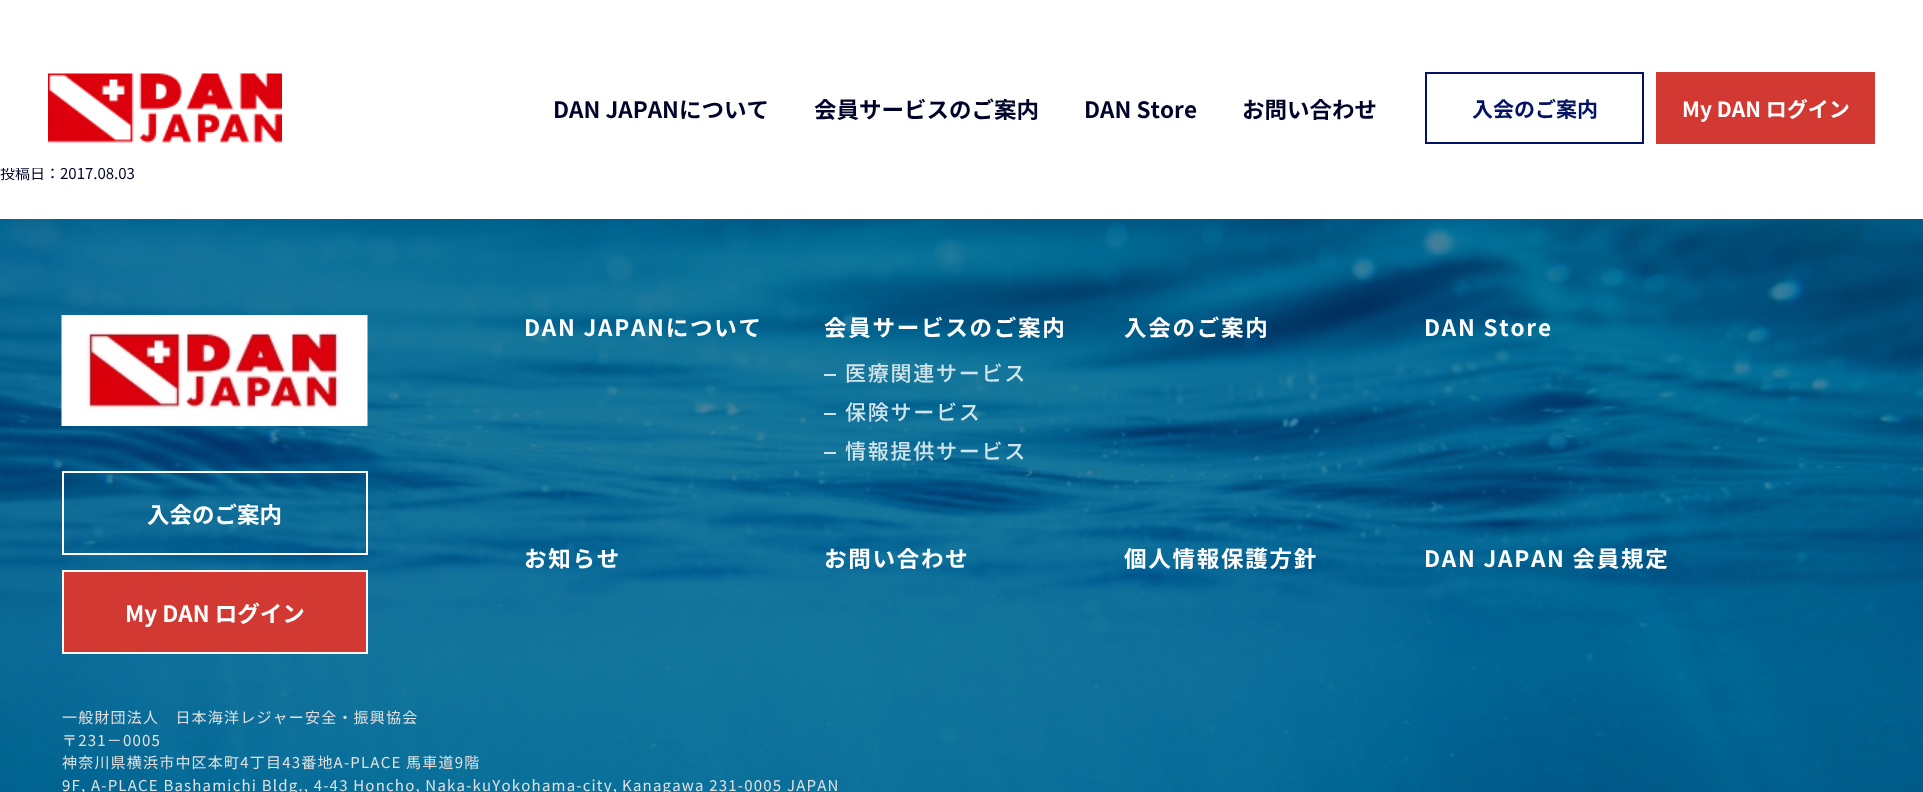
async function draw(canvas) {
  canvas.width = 1923;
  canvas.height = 792;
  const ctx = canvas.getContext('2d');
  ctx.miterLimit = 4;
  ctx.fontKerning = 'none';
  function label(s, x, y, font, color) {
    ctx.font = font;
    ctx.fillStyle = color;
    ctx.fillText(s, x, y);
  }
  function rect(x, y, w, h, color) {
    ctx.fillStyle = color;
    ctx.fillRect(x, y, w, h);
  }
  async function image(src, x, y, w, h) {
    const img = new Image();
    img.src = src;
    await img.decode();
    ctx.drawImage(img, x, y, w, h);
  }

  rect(0, 0, 1923, 792, '#fff');
  label('投稿日：2017.08.03', 0, 179, '15px Noto Sans JP', '#000329');
  rect(2, 166, 130, 2, '#fff');
  await image('assets/img1.png', 48, 73, 234, 70);
  label('DAN JAPANについて', 553, 118, 'bold 22.5px Noto Sans JP', '#000329');
  label('会員サービスのご案内', 814, 118, 'bold 22.5px Noto Sans JP', '#000329');
  label('DAN Store', 1084, 118, 'bold 22.5px Noto Sans JP', '#000329');
  label('お問い合わせ', 1242, 118, 'bold 22.5px Noto Sans JP', '#000329');
  ctx.strokeStyle = '#031264';
  ctx.lineWidth = 2;
  ctx.strokeRect(1426, 73, 217, 70);
  label('入会のご案内', 1472, 117, 'bold 21px Noto Sans JP', '#031264');
  rect(1656, 72, 219, 72, '#d13932');
  label('My DAN ログイン', 1682, 117, 'bold 21px Noto Sans JP', '#fff');
  await image('assets/img2.png', 0, 219, 1923, 573);
  await image('assets/img3.png', 61, 315, 307, 111);
  ctx.strokeStyle = '#fff';
  ctx.strokeRect(63, 472, 304, 82);
  label('入会のご案内', 147, 523, 'bold 22.5px Noto Sans JP', '#fff');
  ctx.fillStyle = '#d13932';
  ctx.beginPath();
  ctx.rect(63, 571, 304, 82);
  ctx.fill();
  ctx.stroke();
  label('My DAN ログイン', 125, 622, 'bold 22.5px Noto Sans JP', '#fff');
  ctx.letterSpacing = '1.75px';
  label('DAN JAPANについて', 524, 336, 'bold 22.5px Noto Sans JP', '#fff');
  label('会員サービスのご案内', 824, 336, 'bold 22.5px Noto Sans JP', '#fff');
  rect(824, 374, 12, 2, '#ffffffcc');
  label('医療関連サービス', 845, 381, '500 21px Noto Sans JP', '#d1e4eb');
  rect(824, 413, 12, 2, '#ffffffcc');
  label('保険サービス', 845, 420, '500 21px Noto Sans JP', '#d1e4eb');
  rect(824, 452, 12, 2, '#ffffffcc');
  label('情報提供サービス', 845, 459, '500 21px Noto Sans JP', '#d1e4eb');
  label('入会のご案内', 1124, 336, 'bold 22.5px Noto Sans JP', '#fff');
  label('DAN Store', 1424, 336, 'bold 22.5px Noto Sans JP', '#fff');
  label('お知らせ', 524, 567, 'bold 22.5px Noto Sans JP', '#fff');
  label('お問い合わせ', 824, 567, 'bold 22.5px Noto Sans JP', '#fff');
  label('個人情報保護方針', 1124, 567, 'bold 22.5px Noto Sans JP', '#fff');
  label('DAN JAPAN 会員規定', 1424, 567, 'bold 22.5px Noto Sans JP', '#fff');
  ctx.letterSpacing = '1.2px';
  label('一般財団法人　日本海洋レジャー安全・振興協会', 62, 723, '15px Noto Sans JP', '#e0e0e0');
  label('〒231－0005', 62, 746, '15px Noto Sans JP', '#e0e0e0');
  label('神奈川県横浜市中区本町4丁目43番地A-PLACE 馬車道9階', 62, 768, '15px Noto Sans JP', '#e0e0e0');
  label('9F, A-PLACE Bashamichi Bldg., 4-43 Honcho, Naka-kuYokohama-city,', 62, 791, '15px Noto Sans JP', '#e0e0e0');
  label('Kanagawa 231-0005 JAPAN', 622, 791, '15px Noto Sans JP', '#e0e0e0');
}

draw(document.querySelector('canvas'));
